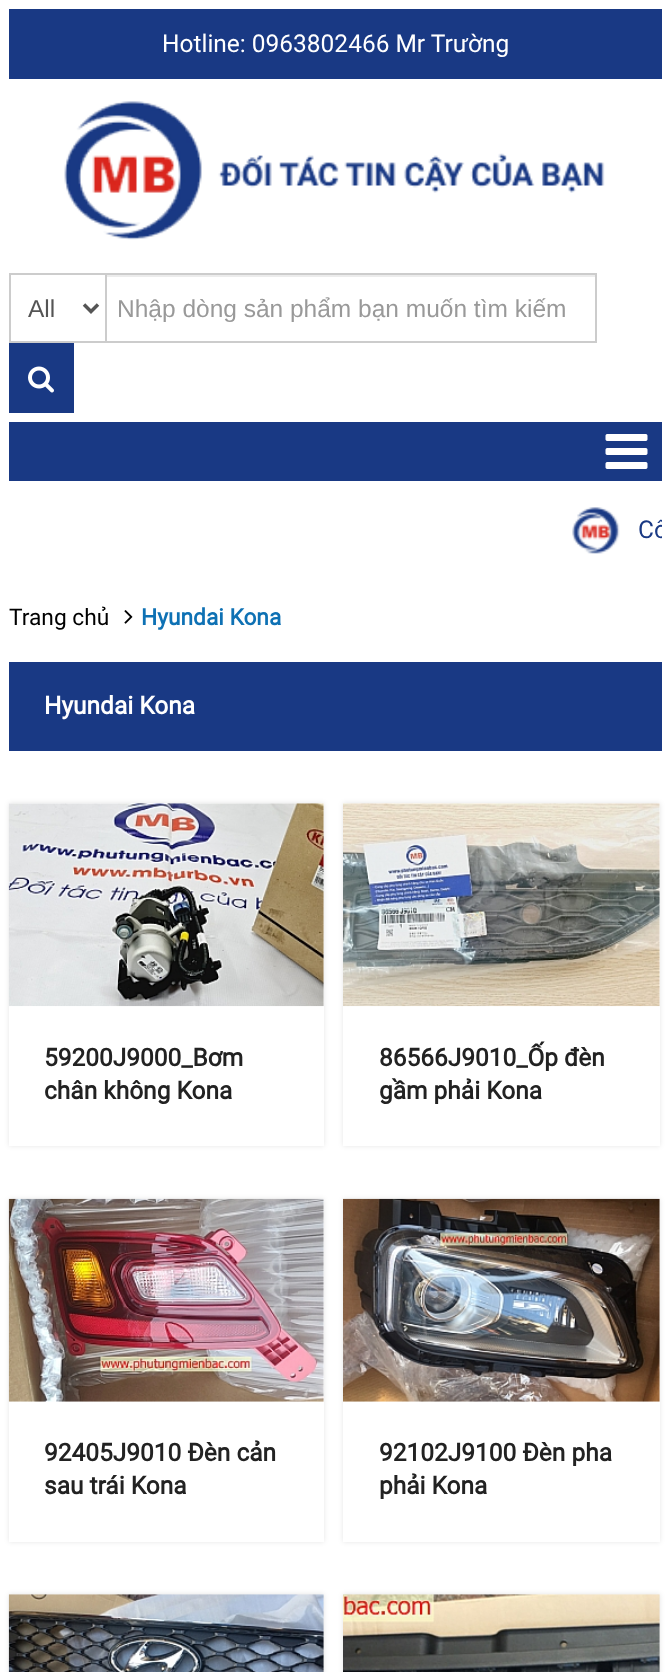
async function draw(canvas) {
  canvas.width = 670;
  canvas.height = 1672;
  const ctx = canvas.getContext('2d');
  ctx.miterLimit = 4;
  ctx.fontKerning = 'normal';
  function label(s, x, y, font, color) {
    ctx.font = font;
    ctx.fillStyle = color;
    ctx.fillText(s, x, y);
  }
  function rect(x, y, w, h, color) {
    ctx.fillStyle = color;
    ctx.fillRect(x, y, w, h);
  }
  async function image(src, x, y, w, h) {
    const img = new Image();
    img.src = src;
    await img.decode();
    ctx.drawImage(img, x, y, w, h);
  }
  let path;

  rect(0, 0, 670, 1672, '#fff');
  rect(9, 9, 653, 70, '#193984');
  label('Hotline: 0963802466 Mr Trường', 162, 52, '24.5px Roboto', '#fff');
  await image('assets/img1.png', 64, 101, 541, 139);
  ctx.strokeStyle = '#ccc';
  ctx.lineWidth = 2;
  ctx.strokeRect(10, 274, 96, 68);
  path = new Path2D('M84 304.5L91 311.5L98 304.5');
  ctx.strokeStyle = '#555';
  ctx.lineWidth = 3.5;
  ctx.stroke(path);
  label('All', 28, 317, '24.5px Liberation Sans', '#555');
  rect(107, 275, 488, 2, '#ececec');
  rect(107, 273, 490, 2, '#ccc');
  rect(595, 273, 2, 70, '#ccc');
  rect(107, 341, 490, 2, '#ccc');
  ctx.save();
  ctx.beginPath();
  ctx.rect(117, 294, 468, 28);
  ctx.clip();
  label('Nhập dòng sản phẩm bạn muốn tìm kiếm', 117, 317, '24.5px Liberation Sans', '#999');
  ctx.restore();
  rect(9, 343, 65, 70, '#193984');
  await image('assets/img2.png', 28, 366, 26, 27);
  rect(9, 422, 653, 59, '#193984');
  await image('assets/img3.png', 605, 434, 43, 35);
  await image('assets/img4.png', 572, 507, 48, 47);
  ctx.save();
  ctx.beginPath();
  ctx.rect(9, 508, 653, 47);
  ctx.clip();
  label('Cô', 638, 538, '24.5px Roboto', '#193984');
  ctx.restore();
  label('Trang chủ', 9, 625, '22.75px Roboto', '#000');
  await image('assets/img5.png', 124, 610, 9, 14);
  label('Hyundai Kona', 141, 625, 'bold 22.75px Roboto', '#0e71b4');
  rect(9, 662, 653, 89, '#193984');
  label('Hyundai Kona', 44, 714, 'bold 24.5px Roboto', '#fff');
  ctx.save();
  path = new Path2D('M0 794H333V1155H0ZM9 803H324V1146H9Z');
  ctx.clip(path, 'evenodd');
  ctx.fillStyle = '#0000001a';
  ctx.filter = 'blur(2.5px)';
  ctx.beginPath();
  ctx.rect(9, 803, 315, 343);
  ctx.fill();
  ctx.filter = 'none';
  ctx.restore();
  await image('assets/img6.png', 8, 803, 316, 204);
  label('59200J9000_Bơm', 44, 1066, 'bold 24.5px Roboto', '#222');
  label('chân không Kona', 44, 1099, 'bold 24.5px Roboto', '#222');
  ctx.save();
  path = new Path2D('M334 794H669V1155H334ZM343 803H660V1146H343Z');
  ctx.clip(path, 'evenodd');
  ctx.fillStyle = '#0000001a';
  ctx.filter = 'blur(2.5px)';
  ctx.beginPath();
  ctx.rect(343, 803, 317, 343);
  ctx.fill();
  ctx.filter = 'none';
  ctx.restore();
  await image('assets/img7.png', 343, 803, 317, 204);
  label('86566J9010_Ốp đèn', 379, 1066, 'bold 24.5px Roboto', '#222');
  label('gầm phải Kona', 379, 1099, 'bold 24.5px Roboto', '#222');
  ctx.save();
  path = new Path2D('M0 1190H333V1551H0ZM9 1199H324V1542H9Z');
  ctx.clip(path, 'evenodd');
  ctx.fillStyle = '#0000001a';
  ctx.filter = 'blur(2.5px)';
  ctx.beginPath();
  ctx.rect(9, 1199, 315, 343);
  ctx.fill();
  ctx.filter = 'none';
  ctx.restore();
  await image('assets/img8.png', 8, 1198, 316, 204);
  label('92405J9010 Đèn cản', 44, 1461, 'bold 24.5px Roboto', '#222');
  label('sau trái Kona', 44, 1494, 'bold 24.5px Roboto', '#222');
  ctx.save();
  path = new Path2D('M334 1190H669V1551H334ZM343 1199H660V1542H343Z');
  ctx.clip(path, 'evenodd');
  ctx.fillStyle = '#0000001a';
  ctx.filter = 'blur(2.5px)';
  ctx.beginPath();
  ctx.rect(343, 1199, 317, 343);
  ctx.fill();
  ctx.filter = 'none';
  ctx.restore();
  await image('assets/img9.png', 343, 1198, 317, 204);
  label('92102J9100 Đèn pha', 379, 1461, 'bold 24.5px Roboto', '#222');
  label('phải Kona', 379, 1494, 'bold 24.5px Roboto', '#222');
  ctx.fillStyle = '#0000001a';
  ctx.filter = 'blur(2.5px)';
  ctx.beginPath();
  ctx.rect(9, 1594, 315, 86);
  ctx.fill();
  ctx.filter = 'none';
  await image('assets/img10.png', 8, 1594, 316, 78);
  ctx.filter = 'blur(2.5px)';
  ctx.beginPath();
  ctx.rect(343, 1594, 317, 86);
  ctx.fill();
  ctx.filter = 'none';
  await image('assets/img11.png', 343, 1594, 317, 78);
}

draw(document.querySelector('canvas'));
